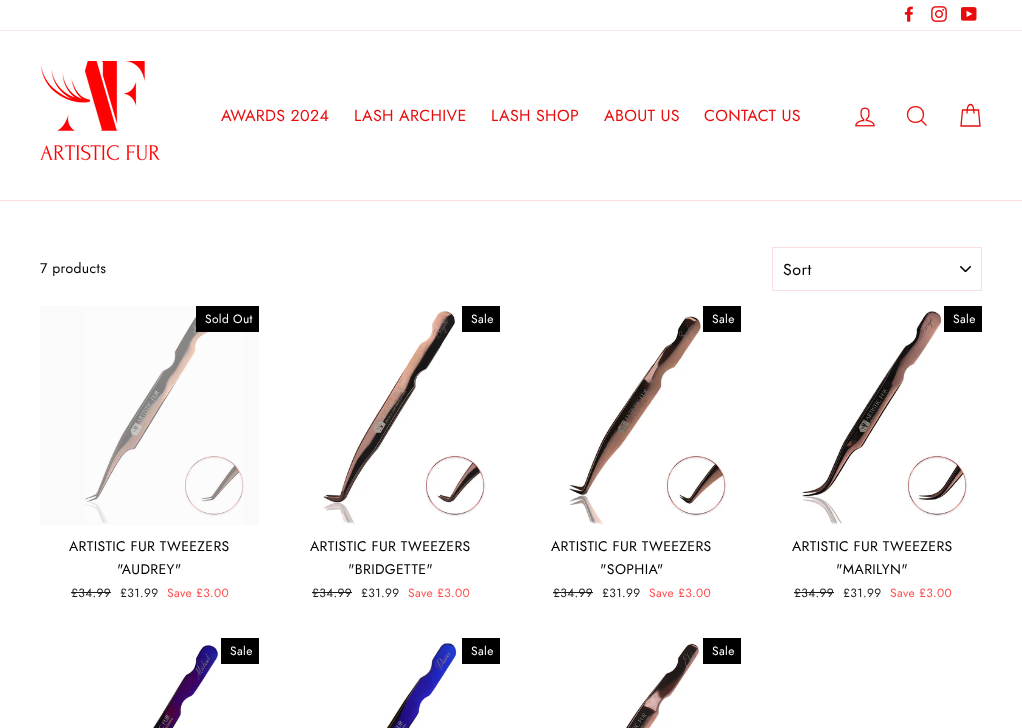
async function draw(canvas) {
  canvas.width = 1022;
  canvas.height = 728;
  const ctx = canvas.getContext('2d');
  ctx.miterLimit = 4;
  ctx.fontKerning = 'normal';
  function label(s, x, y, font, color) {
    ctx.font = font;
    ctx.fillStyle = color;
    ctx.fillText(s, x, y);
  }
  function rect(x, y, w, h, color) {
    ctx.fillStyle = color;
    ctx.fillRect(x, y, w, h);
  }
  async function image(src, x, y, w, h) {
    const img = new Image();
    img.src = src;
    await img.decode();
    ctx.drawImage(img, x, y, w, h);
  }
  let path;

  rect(0, 0, 1022, 728, '#fff');
  await image('assets/img1.png', 904, 6, 9, 16);
  await image('assets/img2.png', 931, 6, 16, 16);
  await image('assets/img3.png', 961, 7, 16, 14);
  rect(0, 30, 1022, 1, '#fde7e7');
  rect(0, 200, 1022, 1, '#fadede');
  await image('assets/img4.png', 40, 61, 120, 100);
  ctx.letterSpacing = '0.35px';
  label('AWARDS 2024', 221, 121, '16px Jost', '#e90c0c');
  label('LASH ARCHIVE', 354, 121, '16px Jost', '#e90c0c');
  label('LASH SHOP', 491, 121, '16px Jost', '#e90c0c');
  label('ABOUT US', 604, 121, '16px Jost', '#e90c0c');
  label('CONTACT US', 704, 121, '16px Jost', '#e90c0c');
  await image('assets/img5.png', 855, 107, 20, 20);
  path = new Path2D('M923.5 114.5C923.5 125 907.5 125 907.5 114.5C907.5 104 923.5 104 923.5 114.5ZM926.5 125.5L921.5 120.5');
  ctx.strokeStyle = '#e90c0c';
  ctx.lineWidth = 1.3;
  ctx.stroke(path);
  path = new Path2D('M967 113.5C967 101.5 974 101.5 974 113.5M962.5 110H978.5L980 126H961Z');
  ctx.stroke(path);
  label('7 products', 40, 273, '14px Jost', '#000');
  await image('assets/img6.png', 960, 266, 11, 6);
  ctx.strokeStyle = '#fadede';
  ctx.lineWidth = 1;
  ctx.strokeRect(772.5, 247.5, 209, 43);
  ctx.letterSpacing = '0.5px';
  label('Sort', 783, 275, '16px Jost', '#000');
  rect(40, 306, 219, 219, '#fafafa');
  await image('assets/img7.png', 85, 311, 159, 213);
  rect(196, 306, 63, 26, '#000');
  ctx.letterSpacing = '0.35px';
  label('Sold Out', 205, 323, '12px Jost', '#fff');
  label('ARTISTIC FUR TWEEZERS', 69, 551, '14px Jost', '#000');
  label('"AUDREY"', 117, 574, '14px Jost', '#000');
  label('£34.99', 71, 597, '12px Jost', '#1c1d1d');
  rect(71, 592, 40, 1, '#1c1d1d');
  label('£31.99', 120, 597, '12px Jost', '#1c1d1d');
  label('Save £3.00', 167, 597, '12px Jost', '#ff4e4e');
  await image('assets/img8.png', 281, 306, 219, 219);
  rect(462, 306, 38, 26, '#000');
  label('Sale', 471, 323, '12px Jost', '#fff');
  label('ARTISTIC FUR TWEEZERS', 310, 551, '14px Jost', '#000');
  label('"BRIDGETTE"', 348, 574, '14px Jost', '#000');
  label('£34.99', 312, 597, '12px Jost', '#1c1d1d');
  rect(312, 592, 40, 1, '#1c1d1d');
  label('£31.99', 361, 597, '12px Jost', '#1c1d1d');
  label('Save £3.00', 408, 597, '12px Jost', '#ff4e4e');
  await image('assets/img9.png', 522, 306, 219, 219);
  rect(703, 306, 38, 26, '#000');
  label('Sale', 712, 323, '12px Jost', '#fff');
  label('ARTISTIC FUR TWEEZERS', 551, 551, '14px Jost', '#000');
  label('"SOPHIA"', 600, 574, '14px Jost', '#000');
  label('£34.99', 553, 597, '12px Jost', '#1c1d1d');
  rect(553, 592, 40, 1, '#1c1d1d');
  label('£31.99', 602, 597, '12px Jost', '#1c1d1d');
  label('Save £3.00', 649, 597, '12px Jost', '#ff4e4e');
  await image('assets/img10.png', 763, 306, 219, 219);
  rect(944, 306, 38, 26, '#000');
  label('Sale', 953, 323, '12px Jost', '#fff');
  label('ARTISTIC FUR TWEEZERS', 792, 551, '14px Jost', '#000');
  label('"MARILYN"', 836, 574, '14px Jost', '#000');
  label('£34.99', 794, 597, '12px Jost', '#1c1d1d');
  rect(794, 592, 40, 1, '#1c1d1d');
  label('£31.99', 843, 597, '12px Jost', '#1c1d1d');
  label('Save £3.00', 890, 597, '12px Jost', '#ff4e4e');
  await image('assets/img11.png', 40, 638, 219, 90);
  rect(221, 638, 38, 26, '#000');
  label('Sale', 230, 655, '12px Jost', '#fff');
  await image('assets/img12.png', 281, 638, 219, 90);
  rect(462, 638, 38, 26, '#000');
  label('Sale', 471, 655, '12px Jost', '#fff');
  await image('assets/img13.png', 522, 638, 219, 90);
  rect(703, 638, 38, 26, '#000');
  label('Sale', 712, 655, '12px Jost', '#fff');
}

draw(document.querySelector('canvas'));
